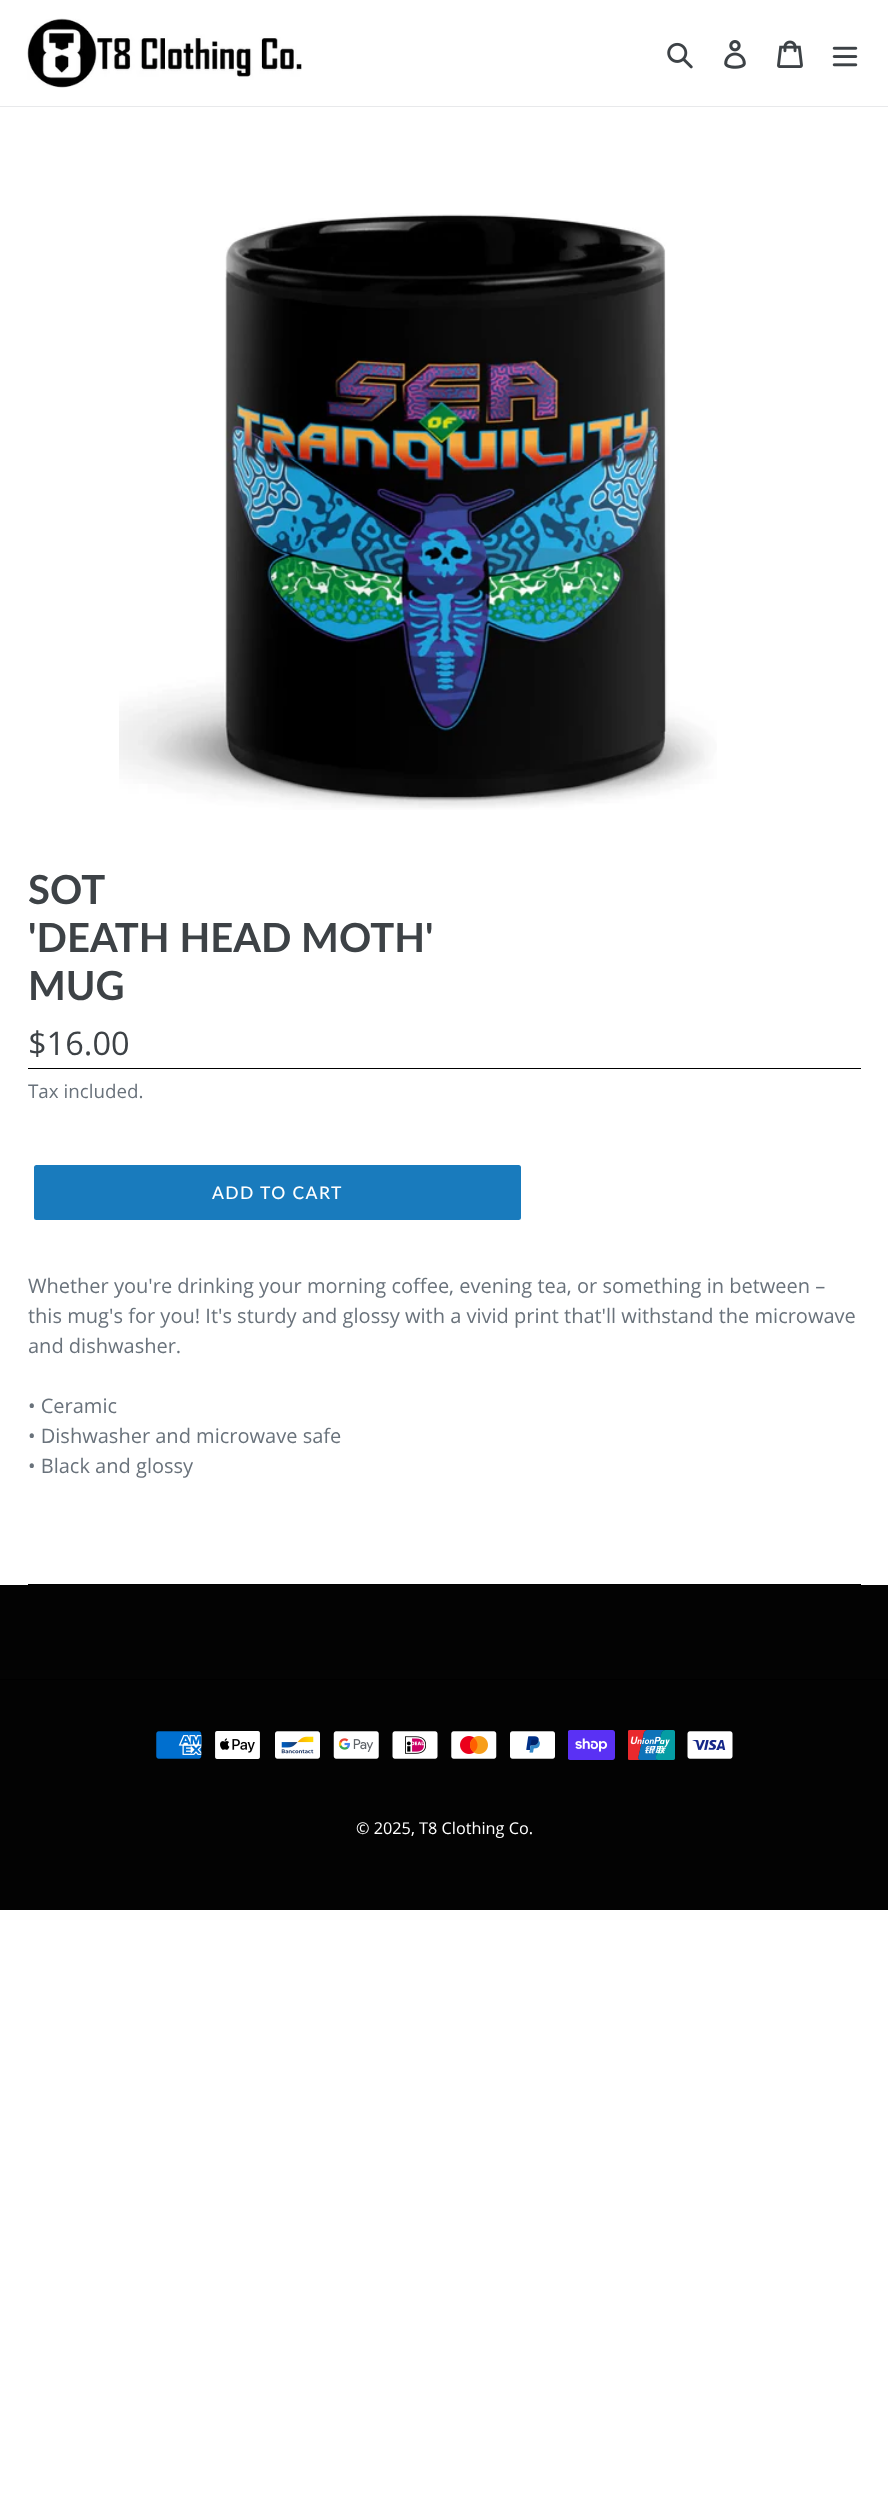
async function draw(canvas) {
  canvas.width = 888;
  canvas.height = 2502;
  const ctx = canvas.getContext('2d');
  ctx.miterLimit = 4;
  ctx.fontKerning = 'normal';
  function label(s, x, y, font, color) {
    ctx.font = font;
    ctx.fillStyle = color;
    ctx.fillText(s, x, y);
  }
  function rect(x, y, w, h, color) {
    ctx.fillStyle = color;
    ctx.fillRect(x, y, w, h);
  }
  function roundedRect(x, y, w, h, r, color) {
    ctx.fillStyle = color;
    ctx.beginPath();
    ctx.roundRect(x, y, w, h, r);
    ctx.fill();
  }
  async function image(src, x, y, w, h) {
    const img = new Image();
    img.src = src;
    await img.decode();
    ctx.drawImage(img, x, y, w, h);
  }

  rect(0, 0, 888, 2502, '#fff');
  rect(0, 106, 888, 1, '#e8e9eb');
  await image('assets/img1.png', 27, 18, 275, 70);
  await image('assets/img2.png', 667, 42, 26, 27);
  await image('assets/img3.png', 724, 40, 22, 29);
  await image('assets/img4.png', 777, 40, 26, 28);
  await image('assets/img5.png', 832, 46, 26, 21);
  await image('assets/img6.png', 119, 213, 598, 597);
  label('SOT', 28, 904, 'bold 40px Lato', '#3d4246');
  label('\'DEATH HEAD MOTH\'', 28, 952, 'bold 40px Lato', '#3d4246');
  label('MUG', 28, 1000, 'bold 40px Lato', '#3d4246');
  label('$16.00', 28, 1055, '32.5px Open Sans', '#3d4246');
  rect(28, 1068, 833, 1, '#000');
  label('Tax included.', 28, 1098, '18.75px Open Sans', '#69727b');
  roundedRect(34, 1165, 487, 55, 2.5, '#197bbd');
  ctx.letterSpacing = '1.4px';
  label('ADD TO CART', 212, 1199, '500 17.5px Lato', '#fff');
  ctx.letterSpacing = '0px';
  label('Whether you\'re drinking your morning coffee, evening tea, or something in between –', 28, 1293, '20px Open Sans', '#69727b');
  label('this mug\'s for you! It\'s sturdy and glossy with a vivid print that\'ll withstand the microwave', 28, 1323, '20px Open Sans', '#69727b');
  label('and dishwasher.', 28, 1353, '20px Open Sans', '#69727b');
  label('• Ceramic', 28, 1413, '20px Open Sans', '#69727b');
  label('• Dishwasher and microwave safe', 28, 1443, '20px Open Sans', '#69727b');
  label('• Black and glossy', 28, 1473, '20px Open Sans', '#69727b');
  rect(28, 1584, 833, 1, '#000');
  rect(0, 1585, 888, 325, '#030303');
  rect(0, 1679, 888, 1, '#000');
  await image('assets/img7.png', 156, 1731, 46, 28);
  await image('assets/img8.png', 215, 1731, 45, 28);
  await image('assets/img9.png', 275, 1731, 45, 28);
  await image('assets/img10.png', 333, 1731, 46, 28);
  await image('assets/img11.png', 392, 1731, 46, 28);
  await image('assets/img12.png', 451, 1731, 46, 28);
  await image('assets/img13.png', 510, 1731, 45, 28);
  await image('assets/img14.png', 568, 1730, 47, 30);
  await image('assets/img15.png', 628, 1730, 47, 30);
  await image('assets/img16.png', 687, 1731, 46, 28);
  label('© 2025, T8 Clothing Co.', 356, 1834, '16.25px Open Sans', '#fff');
}

draw(document.querySelector('canvas'));
